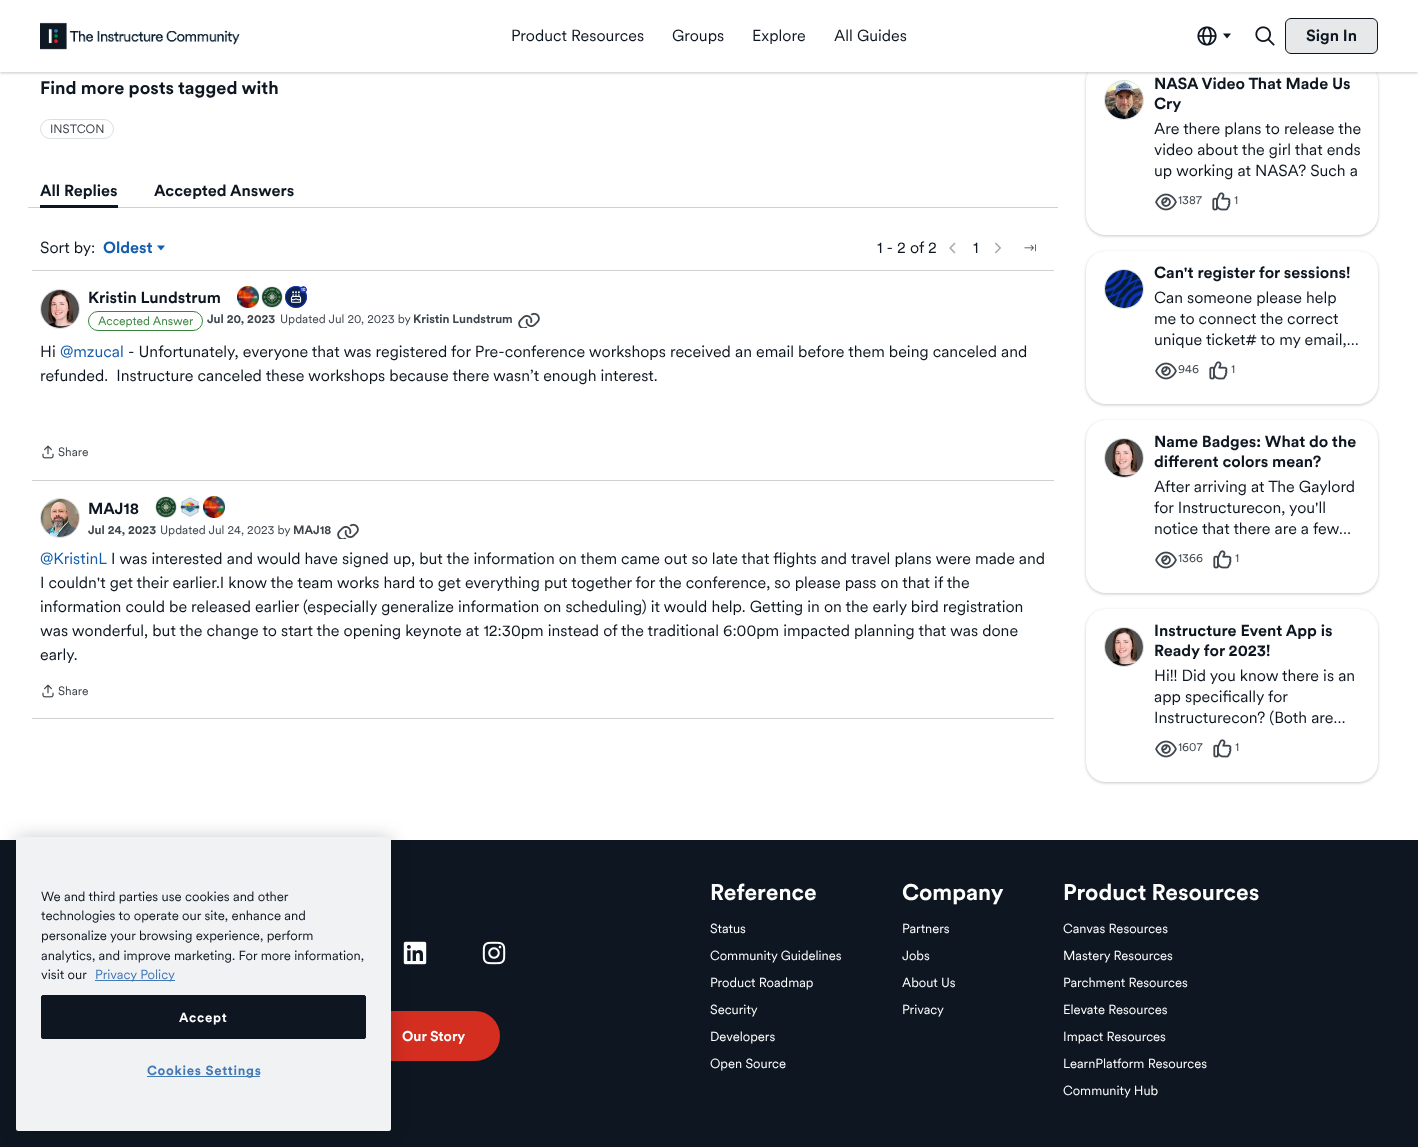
async function draw(canvas) {
  canvas.width = 1418;
  canvas.height = 1147;
  const ctx = canvas.getContext('2d');
  ctx.miterLimit = 4;
  ctx.fontKerning = 'normal';
  function label(s, x, y, font, color) {
    ctx.font = font;
    ctx.fillStyle = color;
    ctx.fillText(s, x, y);
  }
  function rect(x, y, w, h, color) {
    ctx.fillStyle = color;
    ctx.fillRect(x, y, w, h);
  }
  function roundedRect(x, y, w, h, r, color) {
    ctx.fillStyle = color;
    ctx.beginPath();
    ctx.roundRect(x, y, w, h, r);
    ctx.fill();
  }
  async function image(src, x, y, w, h) {
    const img = new Image();
    img.src = src;
    await img.decode();
    ctx.drawImage(img, x, y, w, h);
  }
  let path;

  rect(0, 0, 1418, 1147, '#fff');
  ctx.fillStyle = '#00000038';
  ctx.filter = 'blur(1.5px)';
  ctx.beginPath();
  ctx.roundRect(1086, 63, 292, 173, 20);
  ctx.fill();
  ctx.filter = 'none';
  roundedRect(1086, 62, 292, 173, 20, '#fff');
  ctx.fillStyle = '#00000038';
  ctx.filter = 'blur(1.5px)';
  ctx.beginPath();
  ctx.rect(0, 1, 1418, 72);
  ctx.fill();
  ctx.filter = 'none';
  rect(0, 0, 1418, 72, '#fff');
  await image('assets/img1.png', 40, 22, 200, 28);
  label('Product Resources', 511, 41, '16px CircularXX', '#0e1721');
  label('Groups', 672, 41, '16px CircularXX', '#0e1721');
  label('Explore', 752, 41, '16px CircularXX', '#0e1721');
  label('All Guides', 834, 41, '16px CircularXX', '#0e1721');
  await image('assets/img2.png', 1197, 26, 20, 20);
  path = new Path2D('M1223 33.5H1231L1227 38.5Z');
  ctx.fill(path);
  await image('assets/img3.png', 1255, 26, 20, 20);
  ctx.fillStyle = '#e7e8e9';
  ctx.beginPath();
  ctx.roundRect(1285.5, 18.5, 92, 35, 5.5);
  ctx.fill();
  ctx.strokeStyle = '#0e1721';
  ctx.stroke();
  label('Sign In', 1306, 41, 'bold 16px CircularXX', '#0e1721');
  label('Find more posts tagged with', 40, 94, 'bold 18px CircularXX', '#0e1721');
  ctx.beginPath();
  ctx.roundRect(40.5, 119.5, 73, 19, 9.5);
  ctx.strokeStyle = '#dddee0';
  ctx.stroke();
  label('INSTCON', 50, 133, '12px CircularXX', '#3e454d');
  rect(28, 207, 1030, 1, '#cfd1d3');
  label('All Replies', 40, 196, 'bold 16px CircularXX', '#0e1721');
  rect(40, 205, 78, 3, '#0e1721');
  label('Accepted Answers', 154, 196, 'bold 16px CircularXX', '#0e1721');
  label('Sort by:', 40, 253, '16px CircularXX', '#0e1721');
  label('Oldest', 103, 253, 'bold 16px CircularXX', '#155dae');
  path = new Path2D('M157 245.5H165L161 250.5Z');
  ctx.fill(path);
  label('1 - 2 of 2', 877, 253, '16px CircularXX', '#0e1721');
  await image('assets/img4.png', 949, 242, 7, 12);
  label('1', 973, 253, '16px CircularXX', '#0e1721');
  await image('assets/img5.png', 995, 242, 6, 12);
  await image('assets/img6.png', 1024, 244, 12, 8);
  rect(32, 270, 1022, 1, '#cfd1d3');
  ctx.beginPath();
  ctx.arc(60, 309, 19.5, 0, 2 * Math.PI);
  ctx.strokeStyle = '#dbdcde';
  ctx.stroke();
  await image('assets/img7.png', 41, 290, 38, 38);
  label('Kristin Lundstrum', 88, 303, 'bold 16px CircularXX', '#0e1721');
  await image('assets/img8.png', 237, 286, 22, 22);
  await image('assets/img9.png', 261, 286, 22, 22);
  await image('assets/img10.png', 285, 286, 22, 22);
  ctx.beginPath();
  ctx.roundRect(88.5, 311.5, 114, 19, 9.5);
  ctx.strokeStyle = '#38853d';
  ctx.stroke();
  label('Accepted Answer', 98, 325, '12px CircularXX', '#38853d');
  label('Jul 20, 2023', 207, 323, 'bold 12px CircularXX', '#3e454d');
  label('Updated Jul 20, 2023 by', 280, 323, '12px CircularXX', '#3e454d');
  label('Kristin Lundstrum', 413, 323, 'bold 12px CircularXX', '#3e454d');
  await image('assets/img11.png', 518, 312, 22, 16);
  label('Hi', 40, 357, '16px CircularXX', '#0e1721');
  label('@mzucal', 60, 357, '16px CircularXX', '#155dae');
  label('- Unfortunately, everyone that was registered for Pre-conference workshops received an email before them being canceled and', 128, 357, '16px CircularXX', '#0e1721');
  label('refunded.  Instructure canceled these workshops because there wasn’t enough interest.', 40, 381, '16px CircularXX', '#0e1721');
  await image('assets/img12.png', 42, 445, 12, 14);
  label('Share', 58, 456, '12px CircularXX', '#3e454d');
  rect(32, 480, 1022, 1, '#cfd1d3');
  ctx.beginPath();
  ctx.arc(60, 518, 19.5, 0, 2 * Math.PI);
  ctx.strokeStyle = '#dbdcde';
  ctx.stroke();
  await image('assets/img13.png', 41, 499, 38, 38);
  label('MAJ18', 88, 514, 'bold 16px CircularXX', '#0e1721');
  await image('assets/img14.png', 155, 496, 22, 22);
  await image('assets/img15.png', 180, 497, 20, 20);
  await image('assets/img16.png', 203, 496, 22, 22);
  label('Jul 24, 2023', 88, 534, 'bold 12px CircularXX', '#3e454d');
  label('Updated Jul 24, 2023 by', 160, 534, '12px CircularXX', '#3e454d');
  label('MAJ18', 293, 534, 'bold 12px CircularXX', '#3e454d');
  await image('assets/img11.png', 337, 523, 22, 16);
  label('@KristinL', 40, 564, '16px CircularXX', '#155dae');
  label('I was interested and would have signed up, but the information on them came out so late that flights and travel plans were made and', 111, 564, '16px CircularXX', '#0e1721');
  label('I couldn\'t get their earlier.I know the team works hard to get everything put together for the conference, so please pass on that if the', 40, 588, '16px CircularXX', '#0e1721');
  label('information could be released earlier (especially generalize information on scheduling) it would help. Getting in on the early bird registration', 40, 612, '16px CircularXX', '#0e1721');
  label('was wonderful, but the change to start the opening keynote at 12:30pm instead of the traditional 6:00pm impacted planning that was done', 40, 636, '16px CircularXX', '#0e1721');
  label('early.', 40, 660, '16px CircularXX', '#0e1721');
  await image('assets/img12.png', 42, 684, 12, 14);
  label('Share', 58, 695, '12px CircularXX', '#3e454d');
  rect(32, 718, 1022, 1, '#cfd1d3');
  ctx.beginPath();
  ctx.arc(1124, 100, 19.5, 0, 2 * Math.PI);
  ctx.stroke();
  await image('assets/img17.png', 1105, 81, 38, 38);
  label('NASA Video That Made Us', 1154, 89, 'bold 16px CircularXX', '#0e1721');
  label('Cry', 1154, 109, 'bold 16px CircularXX', '#0e1721');
  label('Are there plans to release the', 1154, 134, '16px CircularXX', '#0e1721');
  label('video about the girl that ends', 1154, 155, '16px CircularXX', '#0e1721');
  label('up working at NASA? Such a', 1154, 176, '16px CircularXX', '#0e1721');
  await image('assets/img18.png', 1155, 193, 22, 18);
  label('1387', 1178, 204, '12px CircularXX', '#3e454d');
  await image('assets/img19.png', 1212, 192, 19, 19);
  label('1', 1234, 204, '12px CircularXX', '#3e454d');
  ctx.fillStyle = '#00000038';
  ctx.filter = 'blur(1.5px)';
  ctx.beginPath();
  ctx.roundRect(1086, 252, 292, 153, 20);
  ctx.fill();
  ctx.filter = 'none';
  roundedRect(1086, 251, 292, 153, 20, '#fff');
  ctx.beginPath();
  ctx.arc(1124, 289, 19.5, 0, 2 * Math.PI);
  ctx.stroke();
  await image('assets/img20.png', 1105, 270, 38, 38);
  label('Can\'t register for sessions!', 1154, 278, 'bold 16px CircularXX', '#0e1721');
  label('Can someone please help', 1154, 303, '16px CircularXX', '#0e1721');
  label('me to connect the correct', 1154, 324, '16px CircularXX', '#0e1721');
  label('unique ticket# to my email,…', 1154, 345, '16px CircularXX', '#0e1721');
  await image('assets/img18.png', 1155, 362, 22, 18);
  label('946', 1178, 373, '12px CircularXX', '#3e454d');
  await image('assets/img19.png', 1209, 361, 19, 19);
  label('1', 1231, 373, '12px CircularXX', '#3e454d');
  ctx.fillStyle = '#00000038';
  ctx.filter = 'blur(1.5px)';
  ctx.beginPath();
  ctx.roundRect(1086, 421, 292, 173, 20);
  ctx.fill();
  ctx.filter = 'none';
  roundedRect(1086, 420, 292, 173, 20, '#fff');
  ctx.beginPath();
  ctx.arc(1124, 458, 19.5, 0, 2 * Math.PI);
  ctx.stroke();
  await image('assets/img7.png', 1105, 439, 38, 38);
  label('Name Badges: What do the', 1154, 447, 'bold 16px CircularXX', '#0e1721');
  label('different colors mean?', 1154, 467, 'bold 16px CircularXX', '#0e1721');
  label('After arriving at The Gaylord', 1154, 492, '16px CircularXX', '#0e1721');
  label('for Instructurecon, you\'ll', 1154, 513, '16px CircularXX', '#0e1721');
  label('notice that there are a few…', 1154, 534, '16px CircularXX', '#0e1721');
  await image('assets/img18.png', 1155, 551, 22, 18);
  label('1366', 1178, 562, '12px CircularXX', '#3e454d');
  await image('assets/img19.png', 1213, 550, 19, 19);
  label('1', 1235, 562, '12px CircularXX', '#3e454d');
  ctx.fillStyle = '#00000038';
  ctx.filter = 'blur(1.5px)';
  ctx.beginPath();
  ctx.roundRect(1086, 610, 292, 173, 20);
  ctx.fill();
  ctx.filter = 'none';
  roundedRect(1086, 609, 292, 173, 20, '#fff');
  ctx.beginPath();
  ctx.arc(1124, 647, 19.5, 0, 2 * Math.PI);
  ctx.stroke();
  await image('assets/img7.png', 1105, 628, 38, 38);
  label('Instructure Event App is', 1154, 636, 'bold 16px CircularXX', '#0e1721');
  label('Ready for 2023!', 1154, 656, 'bold 16px CircularXX', '#0e1721');
  label('Hi!! Did you know there is an', 1154, 681, '16px CircularXX', '#0e1721');
  label('app specifically for', 1154, 702, '16px CircularXX', '#0e1721');
  label('Instructurecon? (Both are…', 1154, 723, '16px CircularXX', '#0e1721');
  await image('assets/img18.png', 1155, 740, 22, 18);
  label('1607', 1178, 751, '12px CircularXX', '#3e454d');
  await image('assets/img19.png', 1213, 739, 19, 19);
  label('1', 1235, 751, '12px CircularXX', '#3e454d');
  rect(0, 840, 1418, 307, '#0e1721');
  await image('assets/img21.png', 403, 941, 24, 24);
  await image('assets/img22.png', 482, 941, 24, 24);
  ctx.fillStyle = '#d42e21';
  ctx.beginPath();
  ctx.roundRect(369.5, 1013.5, 128, 45, 22.5);
  ctx.fill();
  ctx.strokeStyle = '#d42e21';
  ctx.lineWidth = 5;
  ctx.stroke();
  label('Our Story', 402, 1041, 'bold 14px CircularXX', '#fff');
  label('Reference', 710, 900, 'bold 22.5px CircularXX', '#fff');
  label('Status', 710, 933, '13px CircularXX', '#fff');
  label('Community Guidelines', 710, 960, '13px CircularXX', '#fff');
  label('Product Roadmap', 710, 987, '13px CircularXX', '#fff');
  label('Security', 710, 1014, '13px CircularXX', '#fff');
  label('Developers', 710, 1041, '13px CircularXX', '#fff');
  label('Open Source', 710, 1068, '13px CircularXX', '#fff');
  label('Company', 902, 900, 'bold 22.5px CircularXX', '#fff');
  label('Partners', 902, 933, '13px CircularXX', '#fff');
  label('Jobs', 902, 960, '13px CircularXX', '#fff');
  label('About Us', 902, 987, '13px CircularXX', '#fff');
  label('Privacy', 902, 1014, '13px CircularXX', '#fff');
  label('Product Resources', 1063, 900, 'bold 22.5px CircularXX', '#fff');
  label('Canvas Resources', 1063, 933, '13px CircularXX', '#fff');
  label('Mastery Resources', 1063, 960, '13px CircularXX', '#fff');
  label('Parchment Resources', 1063, 987, '13px CircularXX', '#fff');
  label('Elevate Resources', 1063, 1014, '13px CircularXX', '#fff');
  label('Impact Resources', 1063, 1041, '13px CircularXX', '#fff');
  label('LearnPlatform Resources', 1063, 1068, '13px CircularXX', '#fff');
  label('Community Hub', 1063, 1095, '13px CircularXX', '#fff');
  ctx.fillStyle = '#00000033';
  ctx.filter = 'blur(9px)';
  ctx.beginPath();
  ctx.roundRect(16, 837, 375, 294, 2.5);
  ctx.fill();
  ctx.filter = 'none';
  roundedRect(16, 837, 375, 294, 2.5, '#f0f2f3');
  label('We and third parties use cookies and other', 41, 901, '13.1px CircularXX', '#0e1721');
  label('technologies to operate our site, enhance and', 41, 920, '13.1px CircularXX', '#0e1721');
  label('personalize your browsing experience, perform', 41, 940, '13.1px CircularXX', '#0e1721');
  label('analytics, and improve marketing. For more information,', 41, 960, '13.1px CircularXX', '#0e1721');
  label('visit our', 41, 979, '13.1px CircularXX', '#0e1721');
  rect(95, 980, 80, 1, '#4279b6');
  label('Privacy Policy', 95, 979, '13.1px CircularXX', '#4279b6');
  ctx.fillStyle = '#0e1721';
  ctx.beginPath();
  ctx.roundRect(41.5, 995.5, 324, 43, 1.5);
  ctx.fill();
  ctx.strokeStyle = '#0e1721';
  ctx.lineWidth = 1;
  ctx.stroke();
  ctx.letterSpacing = '0.7px';
  label('Accept', 179, 1022, 'bold 13.1px CircularXX', '#fff');
  rect(147, 1076, 113, 1, '#4279b6');
  label('Cookies Settings', 147, 1075, 'bold 13.1px CircularXX', '#4279b6');
}

draw(document.querySelector('canvas'));
